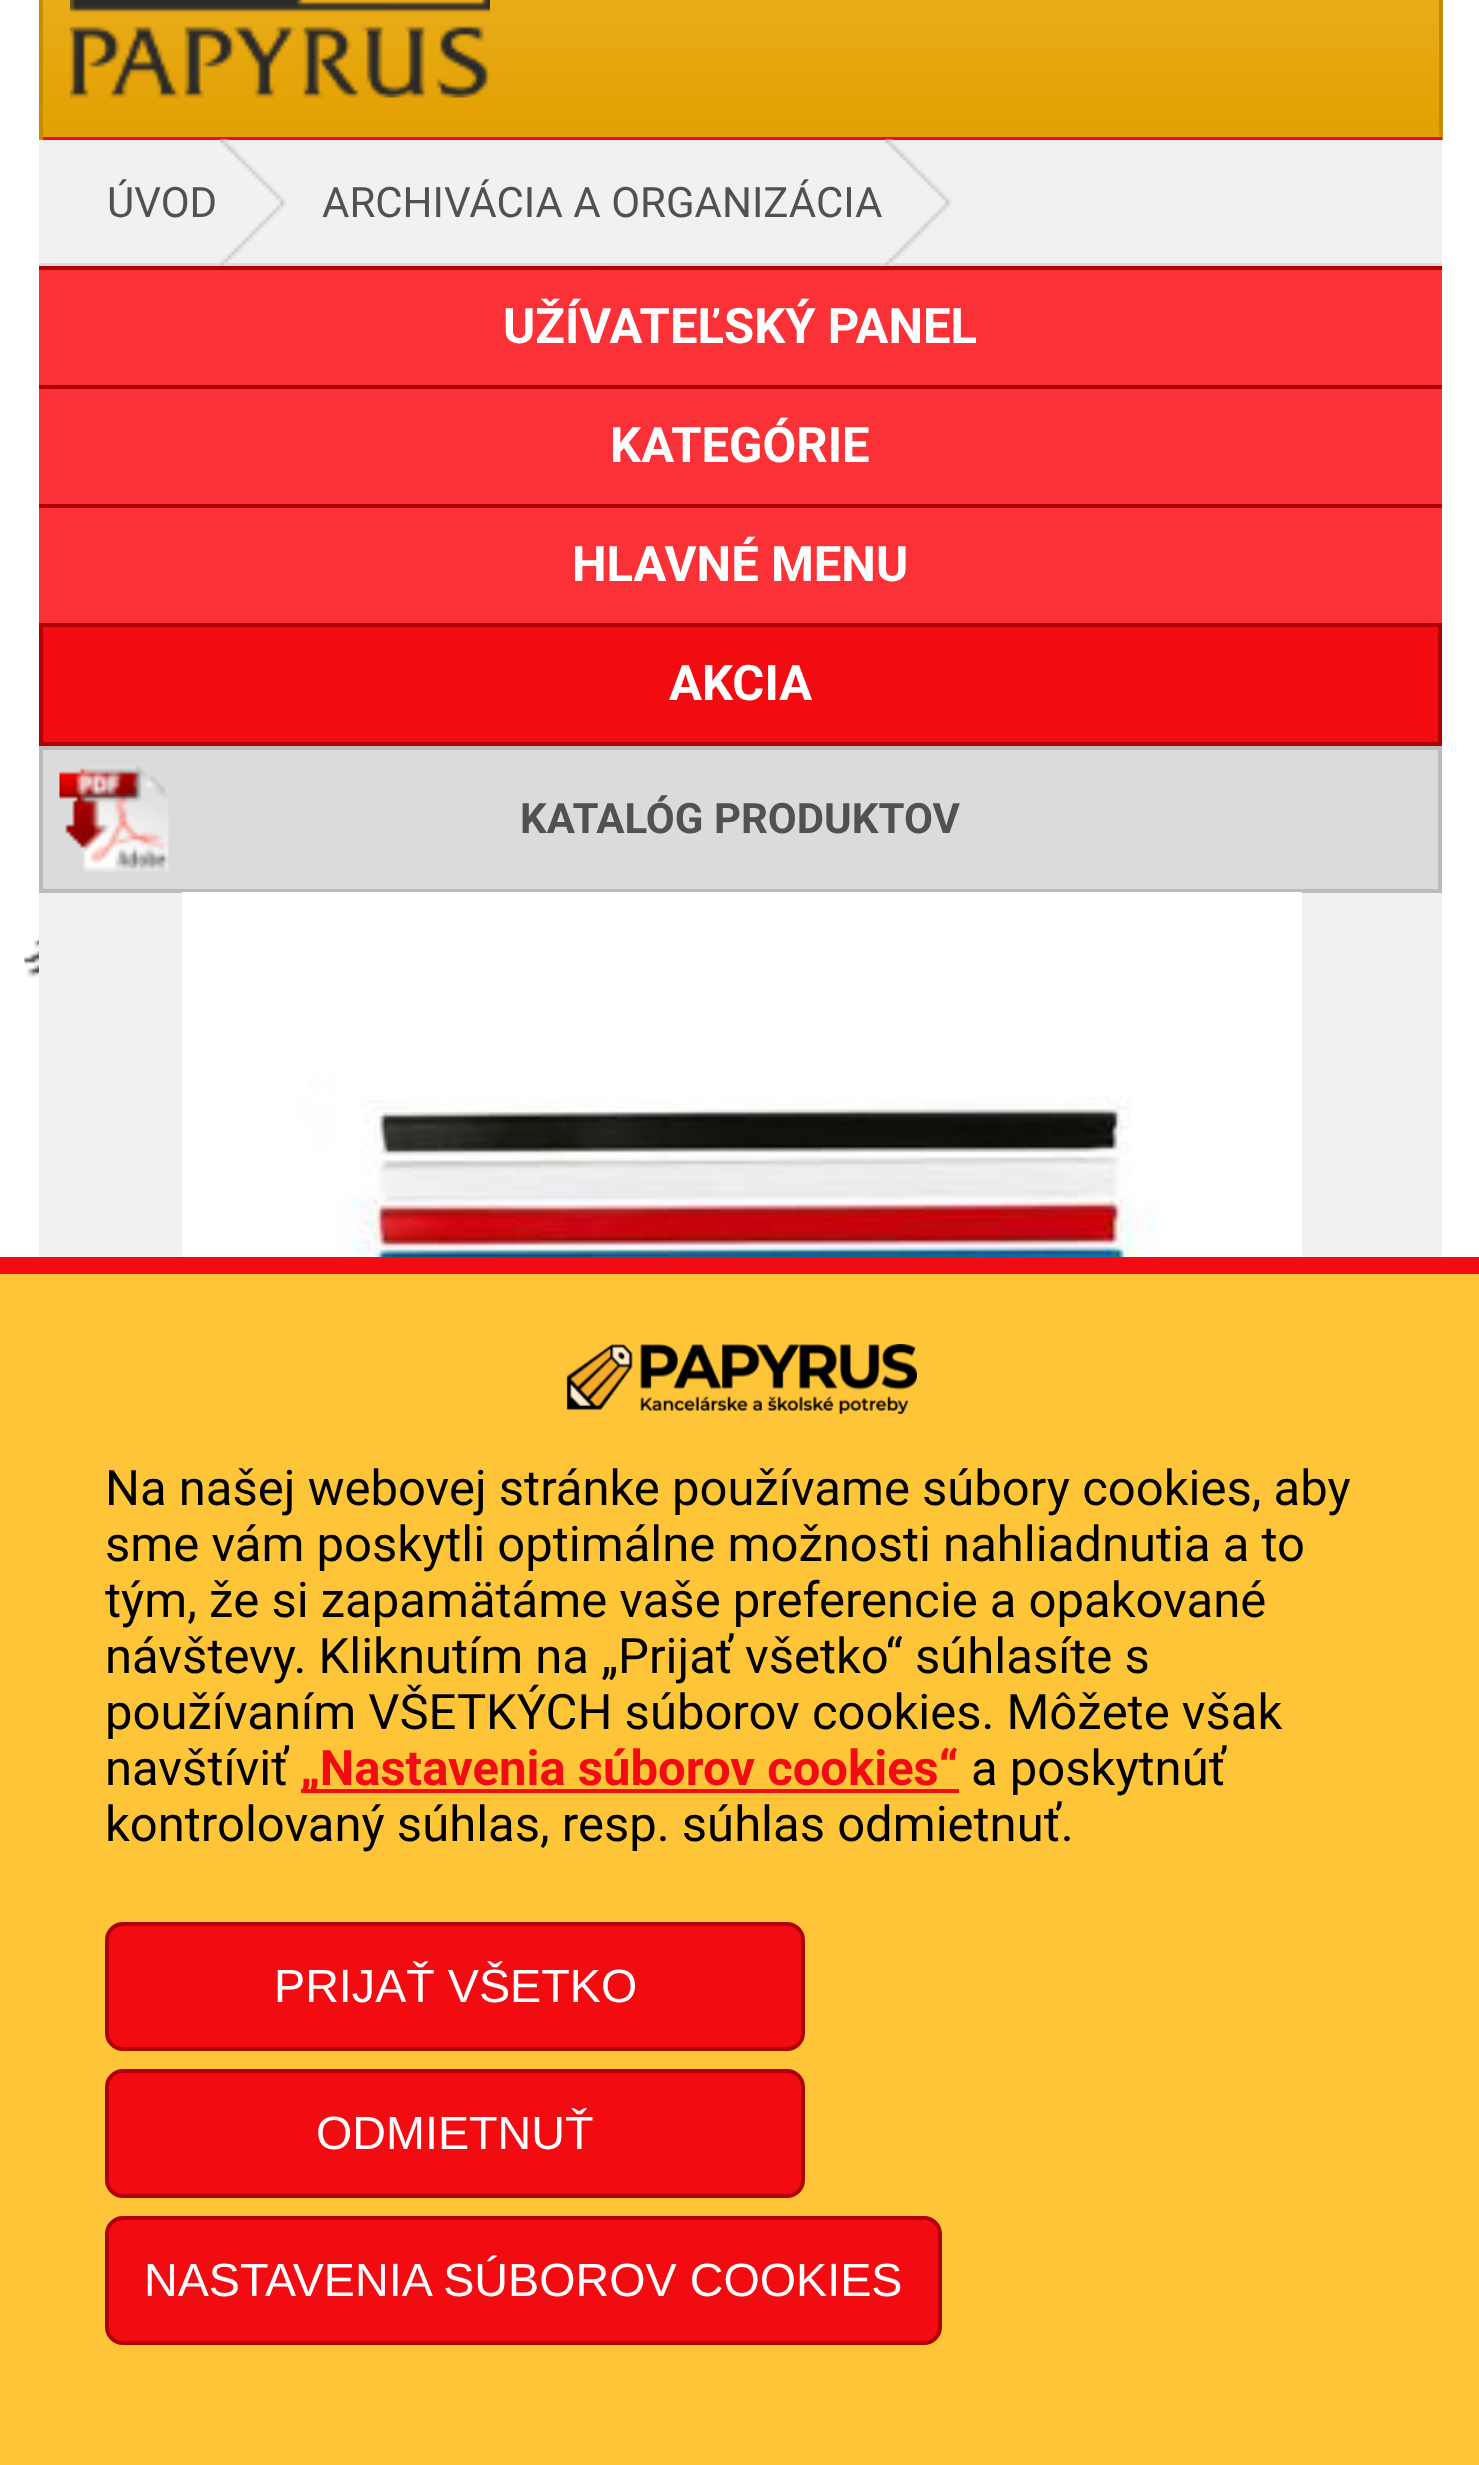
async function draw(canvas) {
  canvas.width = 1479;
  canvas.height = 2465;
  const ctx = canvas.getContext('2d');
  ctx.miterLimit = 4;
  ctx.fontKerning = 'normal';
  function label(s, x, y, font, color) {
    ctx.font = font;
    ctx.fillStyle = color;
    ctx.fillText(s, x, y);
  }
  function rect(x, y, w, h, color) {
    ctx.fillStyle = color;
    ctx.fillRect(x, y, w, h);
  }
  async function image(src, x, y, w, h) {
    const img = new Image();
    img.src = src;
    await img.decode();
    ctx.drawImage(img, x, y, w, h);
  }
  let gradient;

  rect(0, 0, 1479, 2465, '#fff');
  await image('assets/img1.png', 24, 936, 15, 42);
  gradient = ctx.createLinearGradient(740, -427, 740, 137);
  gradient.addColorStop(0, '#ffd164');
  gradient.addColorStop(1, '#e2a000');
  ctx.fillStyle = gradient;
  ctx.fillRect(43, 0, 1396, 137);
  rect(1439, 0, 4, 140, '#c68c00');
  rect(39, 137, 1403, 3, '#f30b12');
  rect(39, 0, 4, 140, '#c68c00');
  await image('assets/img2.png', 70, 0, 420, 98);
  rect(39, 140, 1403, 1117, '#f1f1f1');
  rect(39, 263, 1403, 3, '#dbdbdb');
  await image('assets/img3.png', 220, 139, 67, 127);
  label('ÚVOD', 107, 217, '42px Roboto', '#515151');
  await image('assets/img4.png', 885, 139, 67, 127);
  label('ARCHIVÁCIA A ORGANIZÁCIA', 322, 217, '42px Roboto', '#515151');
  await image('assets/img5.png', 595, 265, 9, 1);
  rect(39, 270, 1403, 115, '#fa3137');
  rect(39, 266, 1403, 4, '#b00005');
  label('UŽÍVATEĽSKÝ PANEL', 503, 343, 'bold 49px Roboto', '#fff');
  rect(39, 389, 1403, 115, '#fa3137');
  rect(39, 385, 1403, 4, '#b00005');
  label('KATEGÓRIE', 610, 462, 'bold 49px Roboto', '#fff');
  rect(39, 508, 1403, 115, '#fa3137');
  rect(39, 504, 1403, 4, '#b00005');
  label('HLAVNÉ MENU', 572, 581, 'bold 49px Roboto', '#fff');
  ctx.fillStyle = '#f30b12';
  ctx.beginPath();
  ctx.rect(41, 625, 1399, 119);
  ctx.fill();
  ctx.strokeStyle = '#b00005';
  ctx.lineWidth = 4;
  ctx.stroke();
  label('AKCIA', 669, 700, 'bold 49px Roboto', '#fff');
  rect(43, 750, 1395, 139, '#dbdbdb');
  await image('assets/img6.png', 59, 765, 110, 107);
  ctx.strokeStyle = '#bbb';
  ctx.strokeRect(41, 748, 1399, 143);
  label('KATALÓG PRODUKTOV', 520, 833, 'bold 42px Roboto', '#515151');
  await image('assets/img7.png', 182, 892, 1120, 365);
  rect(0, 1274, 1479, 1191, '#ffc539');
  rect(0, 1257, 1479, 17, '#f30b12');
  await image('assets/img8.png', 566, 1344, 351, 70);
  label('Na našej webovej stránke používame súbory cookies, aby', 105, 1505, '49px Roboto', '#000');
  label('sme vám poskytli optimálne možnosti nahliadnutia a to', 105, 1561, '49px Roboto', '#000');
  label('tým, že si zapamätáme vaše preferencie a opakované', 105, 1617, '49px Roboto', '#000');
  label('návštevy. Kliknutím na „Prijať všetko“ súhlasíte s', 105, 1673, '49px Roboto', '#000');
  label('používaním VŠETKÝCH súborov cookies. Môžete však', 105, 1729, '49px Roboto', '#000');
  label('navštíviť', 105, 1785, '49px Roboto', '#000');
  rect(301, 1789, 658, 4, '#f30b12');
  label('„Nastavenia súborov cookies“', 300, 1785, 'bold 49px Roboto', '#f30b12');
  label('a poskytnúť', 971, 1785, '49px Roboto', '#000');
  label('kontrolovaný súhlas, resp. súhlas odmietnuť.', 105, 1841, '49px Roboto', '#000');
  ctx.fillStyle = '#f30b12';
  ctx.beginPath();
  ctx.roundRect(107, 1924, 696, 125, 16);
  ctx.fill();
  ctx.strokeStyle = '#b00005';
  ctx.stroke();
  label('PRIJAŤ VŠETKO', 274, 2002, '46.7px Liberation Sans', '#fff');
  ctx.fillStyle = '#f30b12';
  ctx.beginPath();
  ctx.roundRect(107, 2071, 696, 125, 16);
  ctx.fill();
  ctx.stroke();
  label('ODMIETNUŤ', 316, 2149, '46.7px Liberation Sans', '#fff');
  ctx.fillStyle = '#f30b12';
  ctx.beginPath();
  ctx.roundRect(107, 2218, 833, 125, 16);
  ctx.fill();
  ctx.stroke();
  label('NASTAVENIA SÚBOROV COOKIES', 144, 2296, '46.7px Liberation Sans', '#fff');
}

draw(document.querySelector('canvas'));
